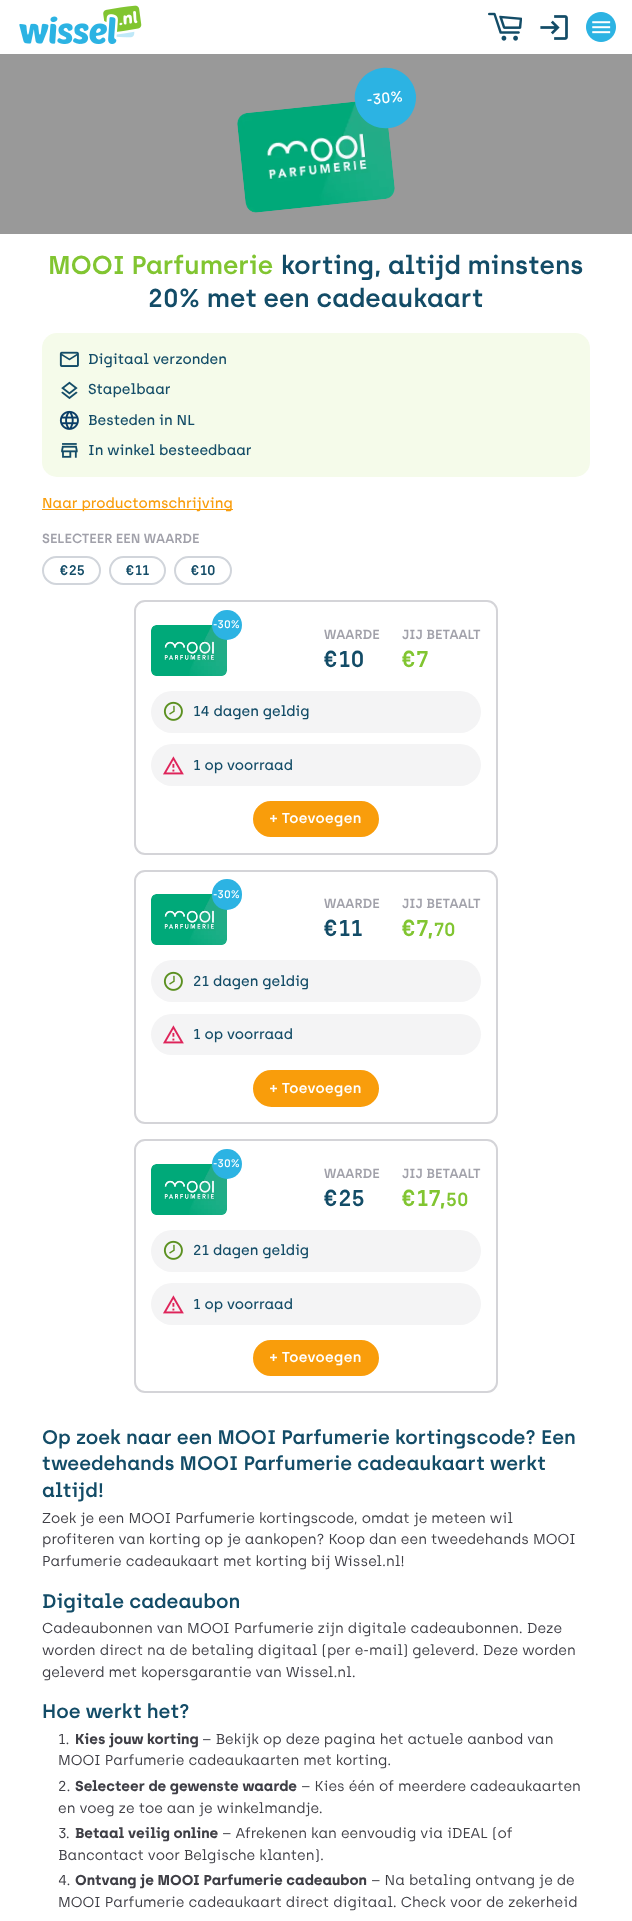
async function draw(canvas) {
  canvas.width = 632;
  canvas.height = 1921;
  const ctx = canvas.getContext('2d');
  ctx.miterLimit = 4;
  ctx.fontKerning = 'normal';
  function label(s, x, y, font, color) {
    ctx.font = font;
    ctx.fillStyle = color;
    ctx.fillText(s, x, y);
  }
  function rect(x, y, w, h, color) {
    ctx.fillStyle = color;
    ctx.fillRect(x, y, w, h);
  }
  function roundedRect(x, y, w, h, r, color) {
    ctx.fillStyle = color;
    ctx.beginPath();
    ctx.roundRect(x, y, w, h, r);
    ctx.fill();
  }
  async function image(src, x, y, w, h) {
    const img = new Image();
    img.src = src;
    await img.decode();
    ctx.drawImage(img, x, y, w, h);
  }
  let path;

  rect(0, 0, 632, 1921, '#fff');
  await image('assets/img1.png', 19, 5, 123, 39);
  await image('assets/img2.png', 488, 12, 34, 29);
  await image('assets/img3.png', 540, 15, 28, 25);
  await image('assets/img4.png', 586, 12, 30, 30);
  rect(0, 54, 632, 180, '#999');
  await image('assets/img5.png', 237, 101, 158, 112);
  ctx.fillStyle = '#2cb3e3';
  path = new Path2D('M382 68C399 66 414 78 416 95C417 112 405 127 389 128C372 130 357 118 355 101C353 85 365 70 382 68Z');
  ctx.fill(path);
  ctx.font = '500 15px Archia';
  ctx.fillStyle = '#fff';
  ctx.save();
  ctx.translate(367, 105);
  ctx.rotate(-6 * Math.PI / 180);
  ctx.fillText('-30%', 0, 0);
  ctx.restore();
  roundedRect(42, 333, 548, 144, 15, '#f5fbea');
  await image('assets/img6.png', 59, 351, 20, 16);
  label('Digitaal verzonden', 88, 364, '500 14.45px Archia', '#134c67');
  await image('assets/img7.png', 61, 381, 17, 19);
  label('Stapelbaar', 88, 394, '500 14.45px Archia', '#134c67');
  await image('assets/img8.png', 59, 410, 20, 20);
  label('Besteden in NL', 88, 425, '500 14.45px Archia', '#134c67');
  await image('assets/img9.png', 61, 443, 17, 15);
  label('In winkel besteedbaar', 88, 455, '500 14.45px Archia', '#134c67');
  rect(42, 509, 191, 1, '#f99d0b');
  label('Naar productomschrijving', 42, 508, '500 14.45px Archia', '#f99d0b');
  label('Op zoek naar een MOOI Parfumerie kortingscode? Een', 42, 1444, '600 19.75px Archia', '#134c67');
  label('tweedehands MOOI Parfumerie cadeaukaart werkt', 42, 1470, '600 19.75px Archia', '#134c67');
  label('altijd!', 42, 1497, '600 19.75px Archia', '#134c67');
  label('Zoek je een MOOI Parfumerie kortingscode, omdat je meteen wil', 42, 1523, '14.45px Archia', '#3f3f46');
  label('profiteren van korting op je aankopen? Koop dan een tweedehands MOOI', 42, 1544, '14.45px Archia', '#3f3f46');
  label('Parfumerie cadeaukaart met korting bij Wissel.nl!', 42, 1566, '14.45px Archia', '#3f3f46');
  label('Digitale cadeaubon', 42, 1608, '600 19.75px Archia', '#134c67');
  label('Cadeaubonnen van MOOI Parfumerie zijn digitale cadeaubonnen. Deze', 42, 1633, '14.45px Archia', '#3f3f46');
  label('worden direct na de betaling digitaal (per e-mail) geleverd. Deze worden', 42, 1655, '14.45px Archia', '#3f3f46');
  label('geleverd met kopersgarantie van Wissel.nl.', 42, 1677, '14.45px Archia', '#3f3f46');
  label('Hoe werkt het?', 42, 1718, '600 19.75px Archia', '#134c67');
  label('1.', 58, 1744, '14.45px Archia', '#3f3f46');
  label('Kies jouw korting', 75, 1744, 'bold 14.45px Archia', '#3f3f46');
  label('– Bekijk op deze pagina het actuele aanbod van', 202, 1744, '14.45px Archia', '#3f3f46');
  label('MOOI Parfumerie cadeaukaarten met korting.', 58, 1765, '14.45px Archia', '#3f3f46');
  label('2.', 58, 1791, '14.45px Archia', '#3f3f46');
  label('Selecteer de gewenste waarde', 75, 1791, 'bold 14.45px Archia', '#3f3f46');
  label('– Kies één of meerdere cadeaukaarten', 301, 1791, '14.45px Archia', '#3f3f46');
  label('en voeg ze toe aan je winkelmandje.', 58, 1813, '14.45px Archia', '#3f3f46');
  label('3.', 58, 1838, '14.45px Archia', '#3f3f46');
  label('Betaal veilig online', 75, 1838, 'bold 14.45px Archia', '#3f3f46');
  label('– Afrekenen kan eenvoudig via iDEAL (of', 222, 1838, '14.45px Archia', '#3f3f46');
  label('Bancontact voor Belgische klanten).', 58, 1860, '14.45px Archia', '#3f3f46');
  label('4.', 58, 1885, '14.45px Archia', '#3f3f46');
  label('Ontvang je MOOI Parfumerie cadeaubon', 75, 1885, 'bold 14.45px Archia', '#3f3f46');
  label('– Na betaling ontvang je de', 371, 1885, '14.45px Archia', '#3f3f46');
  label('MOOI Parfumerie cadeaukaart direct digitaal. Check voor de zekerheid', 58, 1907, '14.45px Archia', '#3f3f46');
  label('MOOI Parfumerie', 48, 274, '600 25.8px Archia', '#81c531');
  label('korting, altijd minstens', 281, 274, '600 25.8px Archia', '#134c67');
  label('20% met een cadeaukaart', 148, 307, '600 25.8px Archia', '#134c67');
  label('SELECTEER EEN WAARDE', 42, 543, '600 13.25px Archia', '#a1a1aa');
  ctx.beginPath();
  ctx.roundRect(43, 557, 57, 27, 13.5);
  ctx.strokeStyle = '#d1d5db';
  ctx.lineWidth = 2;
  ctx.stroke();
  label('€25', 60, 575, '600 14px Archia', '#134c67');
  ctx.beginPath();
  ctx.roundRect(110, 557, 55, 27, 13.5);
  ctx.stroke();
  label('€11', 126, 575, '600 14px Archia', '#134c67');
  ctx.beginPath();
  ctx.roundRect(175, 557, 56, 27, 13.5);
  ctx.stroke();
  label('€10', 191, 575, '600 14px Archia', '#134c67');
  ctx.beginPath();
  ctx.roundRect(135, 601, 362, 253, 10);
  ctx.strokeStyle = '#d4d4d8';
  ctx.stroke();
  await image('assets/img10.png', 151, 625, 76, 51);
  ctx.fillStyle = '#2cb3e3';
  ctx.beginPath();
  ctx.arc(227, 625, 15, 0, 2 * Math.PI);
  ctx.fill();
  label('-30%', 213, 628, '500 11px Archia', '#fff');
  label('WAARDE', 324, 639, '600 13.25px Archia', '#a1a1aa');
  label('€10', 324, 667, '600 23px Archia', '#134c67');
  label('JIJ BETAALT', 402, 639, '600 13.25px Archia', '#a1a1aa');
  label('€7', 402, 667, '600 23px Archia', '#81c531');
  roundedRect(151, 691, 330, 42, 21, '#f4f4f5');
  await image('assets/img11.png', 163, 701, 20, 20);
  label('14 dagen geldig', 193, 716, '500 14.45px Archia', '#134c67');
  roundedRect(151, 744, 330, 42, 21, '#f4f4f5');
  await image('assets/img12.png', 163, 756, 21, 19);
  label('1 op voorraad', 193, 770, '500 14.45px Archia', '#134c67');
  ctx.fillStyle = '#f99d0b';
  ctx.beginPath();
  ctx.roundRect(254, 802, 124, 34, 17);
  ctx.fill();
  ctx.strokeStyle = '#f99d0b';
  ctx.stroke();
  ctx.letterSpacing = '0.4px';
  label('+ Toevoegen', 270, 823, '600 14.45px Archia', '#fff');
  ctx.beginPath();
  ctx.roundRect(135, 871, 362, 252, 10);
  ctx.strokeStyle = '#d4d4d8';
  ctx.stroke();
  await image('assets/img10.png', 151, 894, 76, 51);
  roundedRect(212, 879, 30, 31, 15, '#2cb3e3');
  ctx.letterSpacing = '0px';
  label('-30%', 213, 898, '500 11px Archia', '#fff');
  label('WAARDE', 324, 908, '600 13.25px Archia', '#a1a1aa');
  label('€11', 324, 936, '600 23px Archia', '#134c67');
  label('JIJ BETAALT', 402, 908, '600 13.25px Archia', '#a1a1aa');
  label('€7,', 402, 936, '600 23px Archia', '#81c531');
  label('70', 434, 936, '600 19px Archia', '#81c531');
  roundedRect(151, 960, 330, 42, 21, '#f4f4f5');
  await image('assets/img11.png', 163, 971, 20, 20);
  label('21 dagen geldig', 193, 986, '500 14.45px Archia', '#134c67');
  roundedRect(151, 1014, 330, 41, 20.5, '#f4f4f5');
  await image('assets/img12.png', 163, 1025, 21, 19);
  label('1 op voorraad', 193, 1039, '500 14.45px Archia', '#134c67');
  ctx.fillStyle = '#f99d0b';
  ctx.beginPath();
  ctx.roundRect(254, 1071, 124, 35, 17.5);
  ctx.fill();
  ctx.strokeStyle = '#f99d0b';
  ctx.stroke();
  ctx.letterSpacing = '0.4px';
  label('+ Toevoegen', 270, 1093, '600 14.45px Archia', '#fff');
  ctx.beginPath();
  ctx.roundRect(135, 1140, 362, 252, 10);
  ctx.strokeStyle = '#d4d4d8';
  ctx.stroke();
  await image('assets/img10.png', 151, 1164, 76, 51);
  ctx.fillStyle = '#2cb3e3';
  ctx.beginPath();
  ctx.arc(227, 1164, 15, 0, 2 * Math.PI);
  ctx.fill();
  ctx.letterSpacing = '0px';
  label('-30%', 213, 1167, '500 11px Archia', '#fff');
  label('WAARDE', 324, 1178, '600 13.25px Archia', '#a1a1aa');
  label('€25', 324, 1206, '600 23px Archia', '#134c67');
  label('JIJ BETAALT', 402, 1178, '600 13.25px Archia', '#a1a1aa');
  label('€17,', 402, 1206, '600 23px Archia', '#81c531');
  label('50', 446, 1206, '600 19px Archia', '#81c531');
  roundedRect(151, 1230, 330, 42, 21, '#f4f4f5');
  await image('assets/img11.png', 163, 1240, 20, 20);
  label('21 dagen geldig', 193, 1255, '500 14.45px Archia', '#134c67');
  roundedRect(151, 1283, 330, 42, 21, '#f4f4f5');
  await image('assets/img12.png', 163, 1295, 21, 19);
  label('1 op voorraad', 193, 1309, '500 14.45px Archia', '#134c67');
  ctx.fillStyle = '#f99d0b';
  ctx.beginPath();
  ctx.roundRect(254, 1341, 124, 34, 17);
  ctx.fill();
  ctx.strokeStyle = '#f99d0b';
  ctx.stroke();
  ctx.letterSpacing = '0.4px';
  label('+ Toevoegen', 270, 1362, '600 14.45px Archia', '#fff');
}

draw(document.querySelector('canvas'));
